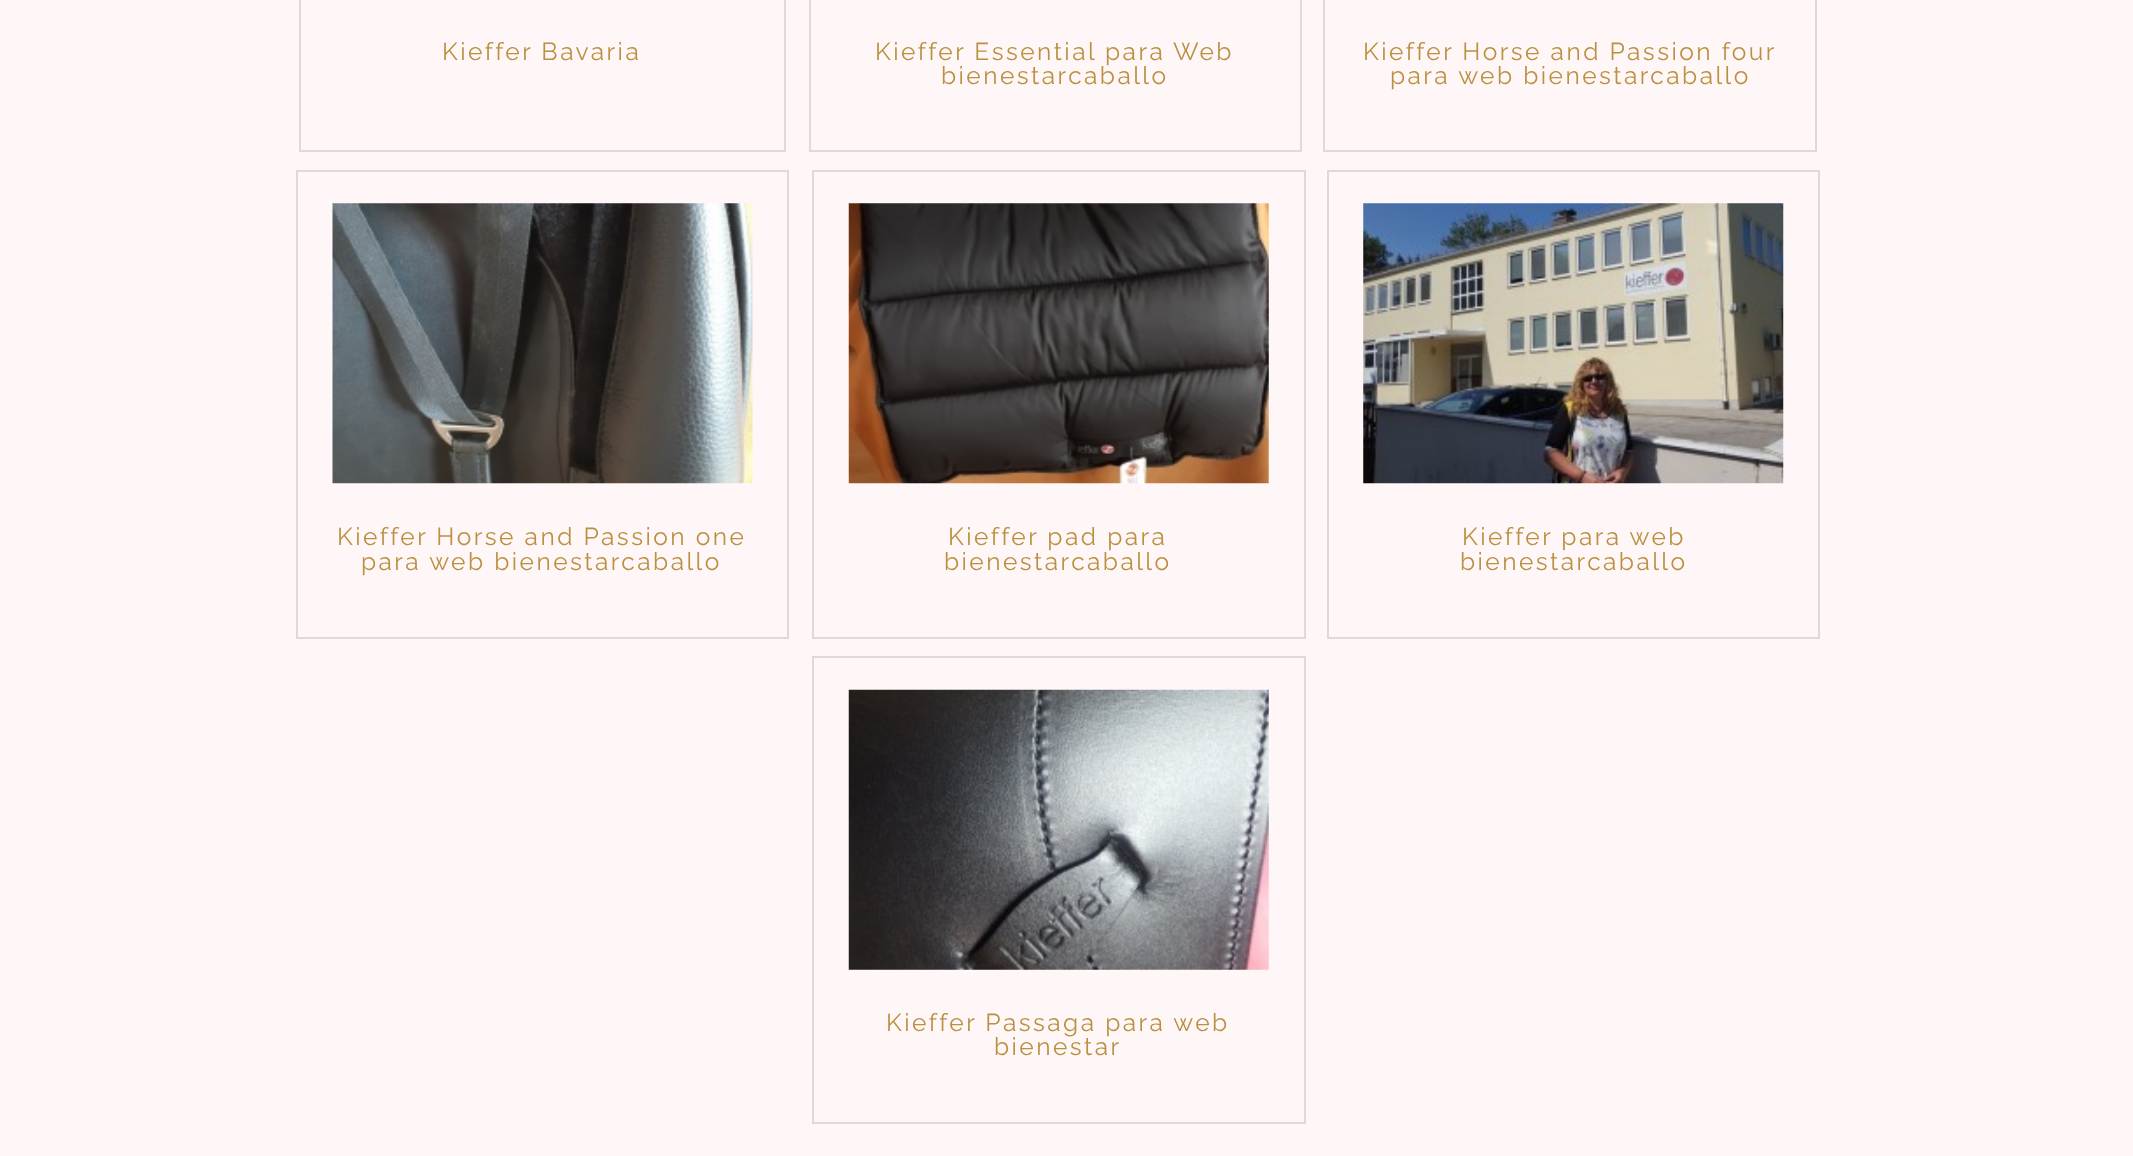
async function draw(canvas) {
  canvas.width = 2133;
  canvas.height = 1156;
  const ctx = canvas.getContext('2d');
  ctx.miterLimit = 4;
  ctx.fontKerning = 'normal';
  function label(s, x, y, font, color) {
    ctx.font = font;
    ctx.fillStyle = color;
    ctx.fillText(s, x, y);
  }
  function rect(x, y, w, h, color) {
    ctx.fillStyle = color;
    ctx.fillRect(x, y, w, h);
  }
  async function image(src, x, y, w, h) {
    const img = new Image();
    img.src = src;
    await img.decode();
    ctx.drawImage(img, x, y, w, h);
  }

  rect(0, 0, 2133, 1156, '#fff7f7');
  ctx.strokeStyle = '#dfdada';
  ctx.lineWidth = 2;
  ctx.strokeRect(300, -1, 485, 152);
  ctx.letterSpacing = '2.45px';
  label('Kieffer Bavaria', 442, 60, '24.5px Raleway', '#bb9042');
  ctx.strokeStyle = '#e0dada';
  ctx.strokeRect(810, -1, 491, 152);
  label('Kieffer Essential para Web', 875, 60, '24.5px Raleway', '#bb9042');
  label('bienestarcaballo', 941, 84, '24.5px Raleway', '#bb9042');
  ctx.strokeStyle = '#9696964d';
  ctx.strokeRect(1324, -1, 492, 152);
  label('Kieffer Horse and Passion four', 1363, 60, '24.5px Raleway', '#bb9042');
  label('para web bienestarcaballo', 1390, 84, '24.5px Raleway', '#bb9042');
  ctx.strokeStyle = '#dfdada';
  ctx.strokeRect(297, 171, 491, 467);
  await image('assets/img1.png', 332, 203, 421, 281);
  label('Kieffer Horse and Passion one', 337, 545, '24.5px Raleway', '#bb9042');
  label('para web bienestarcaballo', 361, 570, '24.5px Raleway', '#bb9042');
  ctx.strokeStyle = '#9696964d';
  ctx.strokeRect(813, 171, 492, 467);
  await image('assets/img2.png', 848, 203, 421, 281);
  label('Kieffer pad para', 948, 545, '24.5px Raleway', '#bb9042');
  label('bienestarcaballo', 944, 570, '24.5px Raleway', '#bb9042');
  ctx.strokeStyle = '#dfdada';
  ctx.strokeRect(1328, 171, 491, 467);
  await image('assets/img3.png', 1363, 203, 421, 281);
  label('Kieffer para web', 1462, 545, '24.5px Raleway', '#bb9042');
  label('bienestarcaballo', 1460, 570, '24.5px Raleway', '#bb9042');
  ctx.strokeStyle = '#9696964d';
  ctx.strokeRect(813, 657, 492, 466);
  await image('assets/img4.png', 848, 689, 421, 281);
  label('Kieffer Passaga para web', 886, 1031, '24.5px Raleway', '#bb9042');
  label('bienestar', 994, 1055, '24.5px Raleway', '#bb9042');
}

draw(document.querySelector('canvas'));
